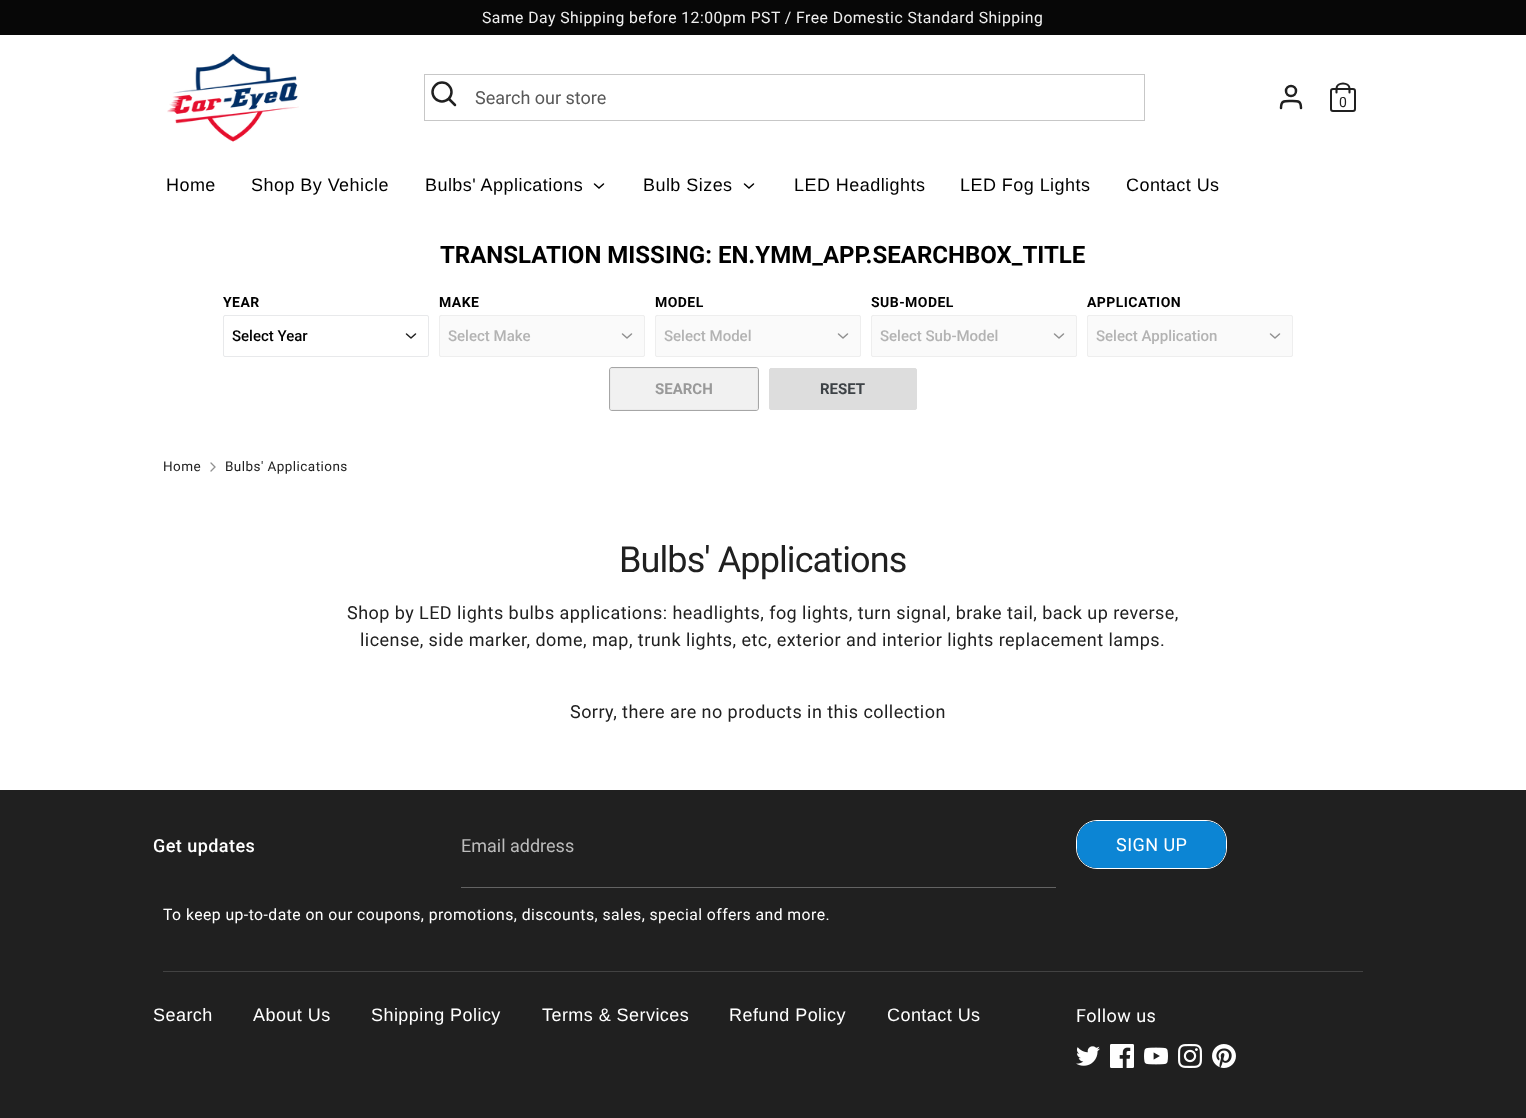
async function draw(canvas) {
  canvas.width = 1526;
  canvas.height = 1118;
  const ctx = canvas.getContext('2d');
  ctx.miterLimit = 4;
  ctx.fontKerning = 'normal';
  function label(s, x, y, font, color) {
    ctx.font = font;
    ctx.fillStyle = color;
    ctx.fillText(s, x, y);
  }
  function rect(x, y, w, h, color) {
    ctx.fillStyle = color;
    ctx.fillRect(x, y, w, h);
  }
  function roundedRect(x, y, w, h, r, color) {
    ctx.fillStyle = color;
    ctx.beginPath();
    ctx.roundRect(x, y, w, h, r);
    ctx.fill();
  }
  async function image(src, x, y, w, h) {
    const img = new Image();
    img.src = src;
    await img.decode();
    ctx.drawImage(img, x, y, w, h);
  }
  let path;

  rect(0, 0, 1526, 1118, '#fff');
  rect(0, 0, 1526, 35, '#070707');
  ctx.letterSpacing = '0.45px';
  label('Same Day Shipping before 12:00pm PST / Free Domestic Standard Shipping', 482, 23, '15.75px Roboto', '#efefef');
  await image('assets/img1.png', 167, 53, 132, 89);
  ctx.strokeStyle = '#c7c7c7';
  ctx.strokeRect(424.5, 74.5, 720, 46);
  ctx.beginPath();
  ctx.arc(442, 92, 9.5, 0, 2 * Math.PI);
  ctx.strokeStyle = '#202020';
  ctx.lineWidth = 2.5;
  ctx.stroke();
  path = new Path2D('M455 105L449 99');
  ctx.lineCap = 'round';
  ctx.stroke(path);
  ctx.letterSpacing = '0px';
  label('Search our store', 475, 104, '18px Roboto', '#585858');
  path = new Path2D('M1301 108C1301 100.5 1298 101 1291 101C1284 101 1281 100.5 1281 108');
  ctx.stroke(path);
  ctx.beginPath();
  ctx.arc(1291, 91, 5, 0, 2 * Math.PI);
  ctx.stroke();
  ctx.beginPath();
  ctx.roundRect(1331, 89, 24, 22, 2);
  ctx.lineWidth = 2;
  ctx.stroke();
  path = new Path2D('M1336.5 92.5V88.5C1336.5 85.5 1339.5 83.5 1343 83.5C1346.5 83.5 1349.5 85.5 1349.5 88.5V92.5');
  ctx.lineWidth = 2.1;
  ctx.stroke(path);
  label('0', 1339, 107, '14px Roboto', '#202020');
  ctx.letterSpacing = '0.45px';
  label('Home', 166, 191, '18px Liberation Sans', '#000');
  label('Shop By Vehicle', 251, 191, '18px Liberation Sans', '#000');
  label('Bulbs\' Applications', 425, 191, '18px Liberation Sans', '#000');
  path = new Path2D('M594.5 184L599 188L603.5 184');
  ctx.strokeStyle = '#000';
  ctx.lineWidth = 1.5;
  ctx.stroke(path);
  label('Bulb Sizes', 643, 191, '18px Liberation Sans', '#000');
  path = new Path2D('M744.5 184L749 188L753.5 184');
  ctx.stroke(path);
  label('LED Headlights', 794, 191, '18px Liberation Sans', '#000');
  label('LED Fog Lights', 960, 191, '18px Liberation Sans', '#000');
  label('Contact Us', 1126, 191, '18px Liberation Sans', '#000');
  ctx.letterSpacing = '0px';
  label('TRANSLATION MISSING: EN.YMM_APP.SEARCHBOX_TITLE', 440, 263, 'bold 24px Roboto', '#000');
  ctx.letterSpacing = '0.45px';
  label('YEAR', 223, 307, 'bold 14px Roboto', '#000');
  path = new Path2D('M406.5 334L411 338L415.5 334');
  ctx.strokeStyle = '#202020';
  ctx.lineJoin = 'round';
  ctx.stroke(path);
  ctx.beginPath();
  ctx.roundRect(223.5, 315.5, 205, 41, 1.5);
  ctx.strokeStyle = '#e8e9eb';
  ctx.lineWidth = 1;
  ctx.lineJoin = 'miter';
  ctx.stroke();
  ctx.letterSpacing = '0px';
  label('Select Year', 232, 341, '500 15px Roboto', '#000');
  ctx.letterSpacing = '0.45px';
  label('MAKE', 439, 307, 'bold 14px Roboto', '#000');
  roundedRect(439, 315, 206, 42, 2, '#fafafa');
  path = new Path2D('M622.5 334L627 338L631.5 334');
  ctx.strokeStyle = '#909090';
  ctx.lineWidth = 1.5;
  ctx.lineJoin = 'round';
  ctx.stroke(path);
  ctx.beginPath();
  ctx.roundRect(439.5, 315.5, 205, 41, 1.5);
  ctx.strokeStyle = '#eee';
  ctx.lineWidth = 1;
  ctx.lineJoin = 'miter';
  ctx.stroke();
  ctx.letterSpacing = '0px';
  label('Select Make', 448, 341, '500 15px Roboto', '#b3b3b3');
  ctx.letterSpacing = '0.45px';
  label('MODEL', 655, 307, 'bold 14px Roboto', '#000');
  roundedRect(655, 315, 206, 42, 2, '#fafafa');
  path = new Path2D('M838.5 334L843 338L847.5 334');
  ctx.strokeStyle = '#909090';
  ctx.lineWidth = 1.5;
  ctx.lineJoin = 'round';
  ctx.stroke(path);
  ctx.beginPath();
  ctx.roundRect(655.5, 315.5, 205, 41, 1.5);
  ctx.strokeStyle = '#eee';
  ctx.lineWidth = 1;
  ctx.lineJoin = 'miter';
  ctx.stroke();
  ctx.letterSpacing = '0px';
  label('Select Model', 664, 341, '500 15px Roboto', '#b3b3b3');
  ctx.letterSpacing = '0.45px';
  label('SUB-MODEL', 871, 307, 'bold 14px Roboto', '#000');
  roundedRect(871, 315, 206, 42, 2, '#fafafa');
  path = new Path2D('M1054.5 334L1059 338L1063.5 334');
  ctx.strokeStyle = '#909090';
  ctx.lineWidth = 1.5;
  ctx.lineJoin = 'round';
  ctx.stroke(path);
  ctx.beginPath();
  ctx.roundRect(871.5, 315.5, 205, 41, 1.5);
  ctx.strokeStyle = '#eee';
  ctx.lineWidth = 1;
  ctx.lineJoin = 'miter';
  ctx.stroke();
  ctx.letterSpacing = '0px';
  label('Select Sub-Model', 880, 341, '500 15px Roboto', '#b3b3b3');
  ctx.letterSpacing = '0.45px';
  label('APPLICATION', 1087, 307, 'bold 14px Roboto', '#000');
  roundedRect(1087, 315, 206, 42, 2, '#fafafa');
  path = new Path2D('M1270.5 334L1275 338L1279.5 334');
  ctx.strokeStyle = '#909090';
  ctx.lineWidth = 1.5;
  ctx.lineJoin = 'round';
  ctx.stroke(path);
  ctx.beginPath();
  ctx.roundRect(1087.5, 315.5, 205, 41, 1.5);
  ctx.strokeStyle = '#eee';
  ctx.lineWidth = 1;
  ctx.lineJoin = 'miter';
  ctx.stroke();
  ctx.letterSpacing = '0px';
  label('Select Application', 1096, 341, '500 15px Roboto', '#b3b3b3');
  ctx.beginPath();
  ctx.roundRect(609.5, 367.5, 149, 43, 2.5);
  ctx.strokeStyle = '#a6a6a6';
  ctx.stroke();
  ctx.fillStyle = '#f1f1f1';
  ctx.beginPath();
  ctx.roundRect(610.5, 368.5, 147, 41, 1.5);
  ctx.fill();
  ctx.strokeStyle = '#ebebeb';
  ctx.stroke();
  label('SEARCH', 655, 394, 'bold 15px Roboto', '#999');
  ctx.fillStyle = '#ddd';
  ctx.beginPath();
  ctx.roundRect(769.5, 368.5, 147, 41, 1.5);
  ctx.fill();
  ctx.strokeStyle = '#ddd';
  ctx.stroke();
  label('RESET', 820, 394, 'bold 15px Roboto', '#3d4246');
  ctx.letterSpacing = '0.45px';
  label('Home', 163, 471, '13.5px Roboto', '#202020');
  path = new Path2D('M211 471L215 467L211 463');
  ctx.strokeStyle = '#909090';
  ctx.lineWidth = 1.3;
  ctx.stroke(path);
  label('Bulbs\' Applications', 225, 471, '13.5px Roboto', '#202020');
  ctx.letterSpacing = '-0.9px';
  label('Bulbs\' Applications', 619, 572, '36px Roboto', '#202020');
  ctx.letterSpacing = '0.45px';
  label('Shop by LED lights bulbs applications: headlights, fog lights, turn signal, brake tail, back up reverse,', 347, 619, '18px Roboto', '#202020');
  label('license, side marker, dome, map, trunk lights, etc, exterior and interior lights replacement lamps.', 360, 646, '18px Roboto', '#202020');
  label('Sorry, there are no products in this collection', 570, 718, '18px Roboto', '#202020');
  rect(0, 790, 1526, 328, '#202020');
  label('Get updates', 153, 852, '500 18px Roboto', '#fff');
  rect(461, 887, 595, 1, '#636363');
  ctx.letterSpacing = '0px';
  label('Email address', 461, 852, '18px Roboto', '#bcbcbc');
  ctx.beginPath();
  ctx.roundRect(1076.5, 820.5, 150, 48, 20.5);
  ctx.strokeStyle = '#fff';
  ctx.lineWidth = 1;
  ctx.stroke();
  roundedRect(1077, 821, 149, 47, 20, '#0c85d4');
  ctx.letterSpacing = '0.45px';
  label('SIGN UP', 1116, 851, '18px Roboto', '#fff');
  label('To keep up-to-date on our coupons, promotions, discounts, sales, special offers and more.', 163, 920, '15.75px Roboto', '#fff');
  rect(163, 971, 1200, 1, '#424242');
  label('Search', 153, 1021, '18px Liberation Sans', '#fff');
  label('About Us', 253, 1021, '18px Liberation Sans', '#fff');
  label('Shipping Policy', 371, 1021, '18px Liberation Sans', '#fff');
  label('Terms & Services', 542, 1021, '18px Liberation Sans', '#fff');
  label('Refund Policy', 729, 1021, '18px Liberation Sans', '#fff');
  label('Contact Us', 887, 1021, '18px Liberation Sans', '#fff');
  label('Follow us', 1076, 1022, '18px Roboto', '#fff');
  await image('assets/img2.png', 1076, 1046, 24, 20);
  await image('assets/img3.png', 1110, 1044, 24, 24);
  await image('assets/img4.png', 1144, 1047, 24, 18);
  await image('assets/img5.png', 1178, 1044, 24, 24);
  await image('assets/img6.png', 1212, 1044, 24, 24);
}

draw(document.querySelector('canvas'));
